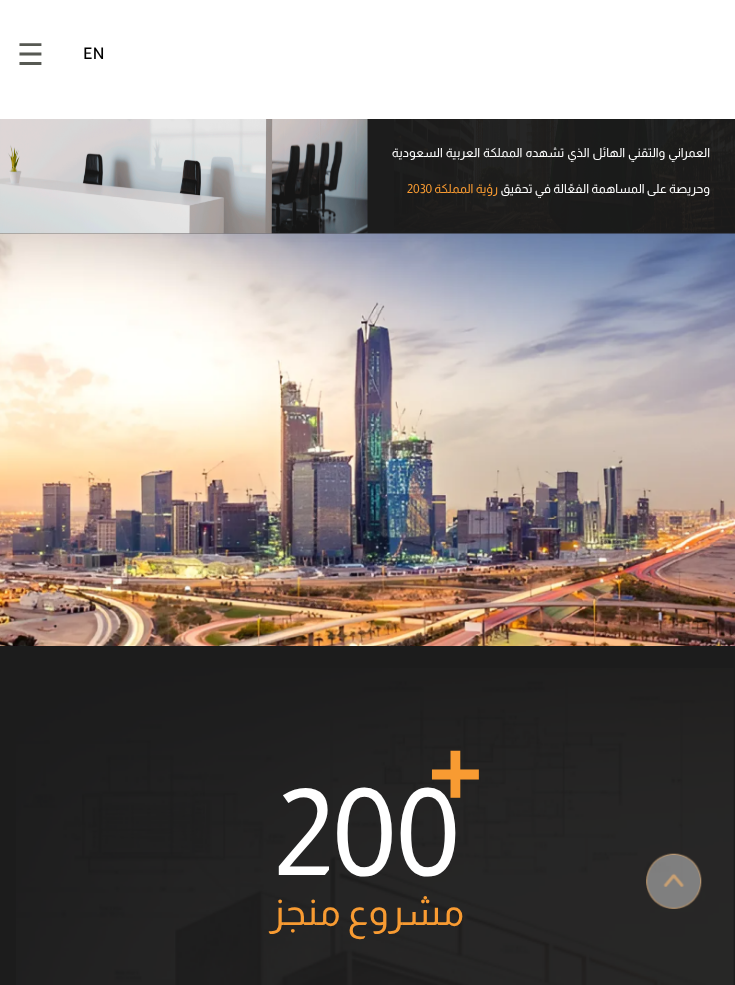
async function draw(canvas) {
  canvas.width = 735;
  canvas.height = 985;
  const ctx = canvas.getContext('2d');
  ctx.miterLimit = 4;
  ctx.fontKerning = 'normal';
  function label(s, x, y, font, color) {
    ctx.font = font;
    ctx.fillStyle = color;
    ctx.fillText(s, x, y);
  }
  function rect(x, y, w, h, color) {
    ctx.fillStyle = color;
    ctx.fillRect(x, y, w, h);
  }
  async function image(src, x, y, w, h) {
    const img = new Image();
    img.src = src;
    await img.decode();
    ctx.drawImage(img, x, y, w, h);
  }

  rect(0, 0, 735, 985, '#1c1c1c');
  rect(0, 0, 735, 119, '#fff');
  label('EN', 83, 59, '500 18px Tajawal', '#000');
  label('☰', 17, 65, '30px DejaVu Sans', '#575953');
  await image('assets/img1.png', 394, 119, 341, 113);
  ctx.wordSpacing = '0.75px';
  ctx.direction = 'rtl';
  label('العمراني والتقني الهائل الذي تشهده المملكة العربية السعودية', 710, 157, '12.5px Almarai', '#fff');
  ctx.wordSpacing = '0px';
  label('وحريصة على المساهمة الفعًالة في تحقيق', 710, 193, '12.5px Almarai', '#fff');
  label('رؤية المملكة', 498, 193, '12.5px Almarai', '#f89b32');
  ctx.direction = 'ltr';
  label('2030', 407, 193, '12.5px Almarai', '#f89b32');
  await image('assets/img2.png', 0, 119, 368, 115);
  await image('assets/img5.png', 16, 668, 718, 317);
  await image('assets/img3.png', 646, 853, 56, 56);
  await image('assets/img4.png', 0, 233, 735, 413);
  label('+', 427, 800, 'bold 108px Almarai', '#f89b32');
  label('200', 275, 875, '120px Almarai', '#fff');
  ctx.direction = 'rtl';
  label('مشروع منجز', 464, 925, '37.5px Almarai', '#f89b32');
}

draw(document.querySelector('canvas'));
